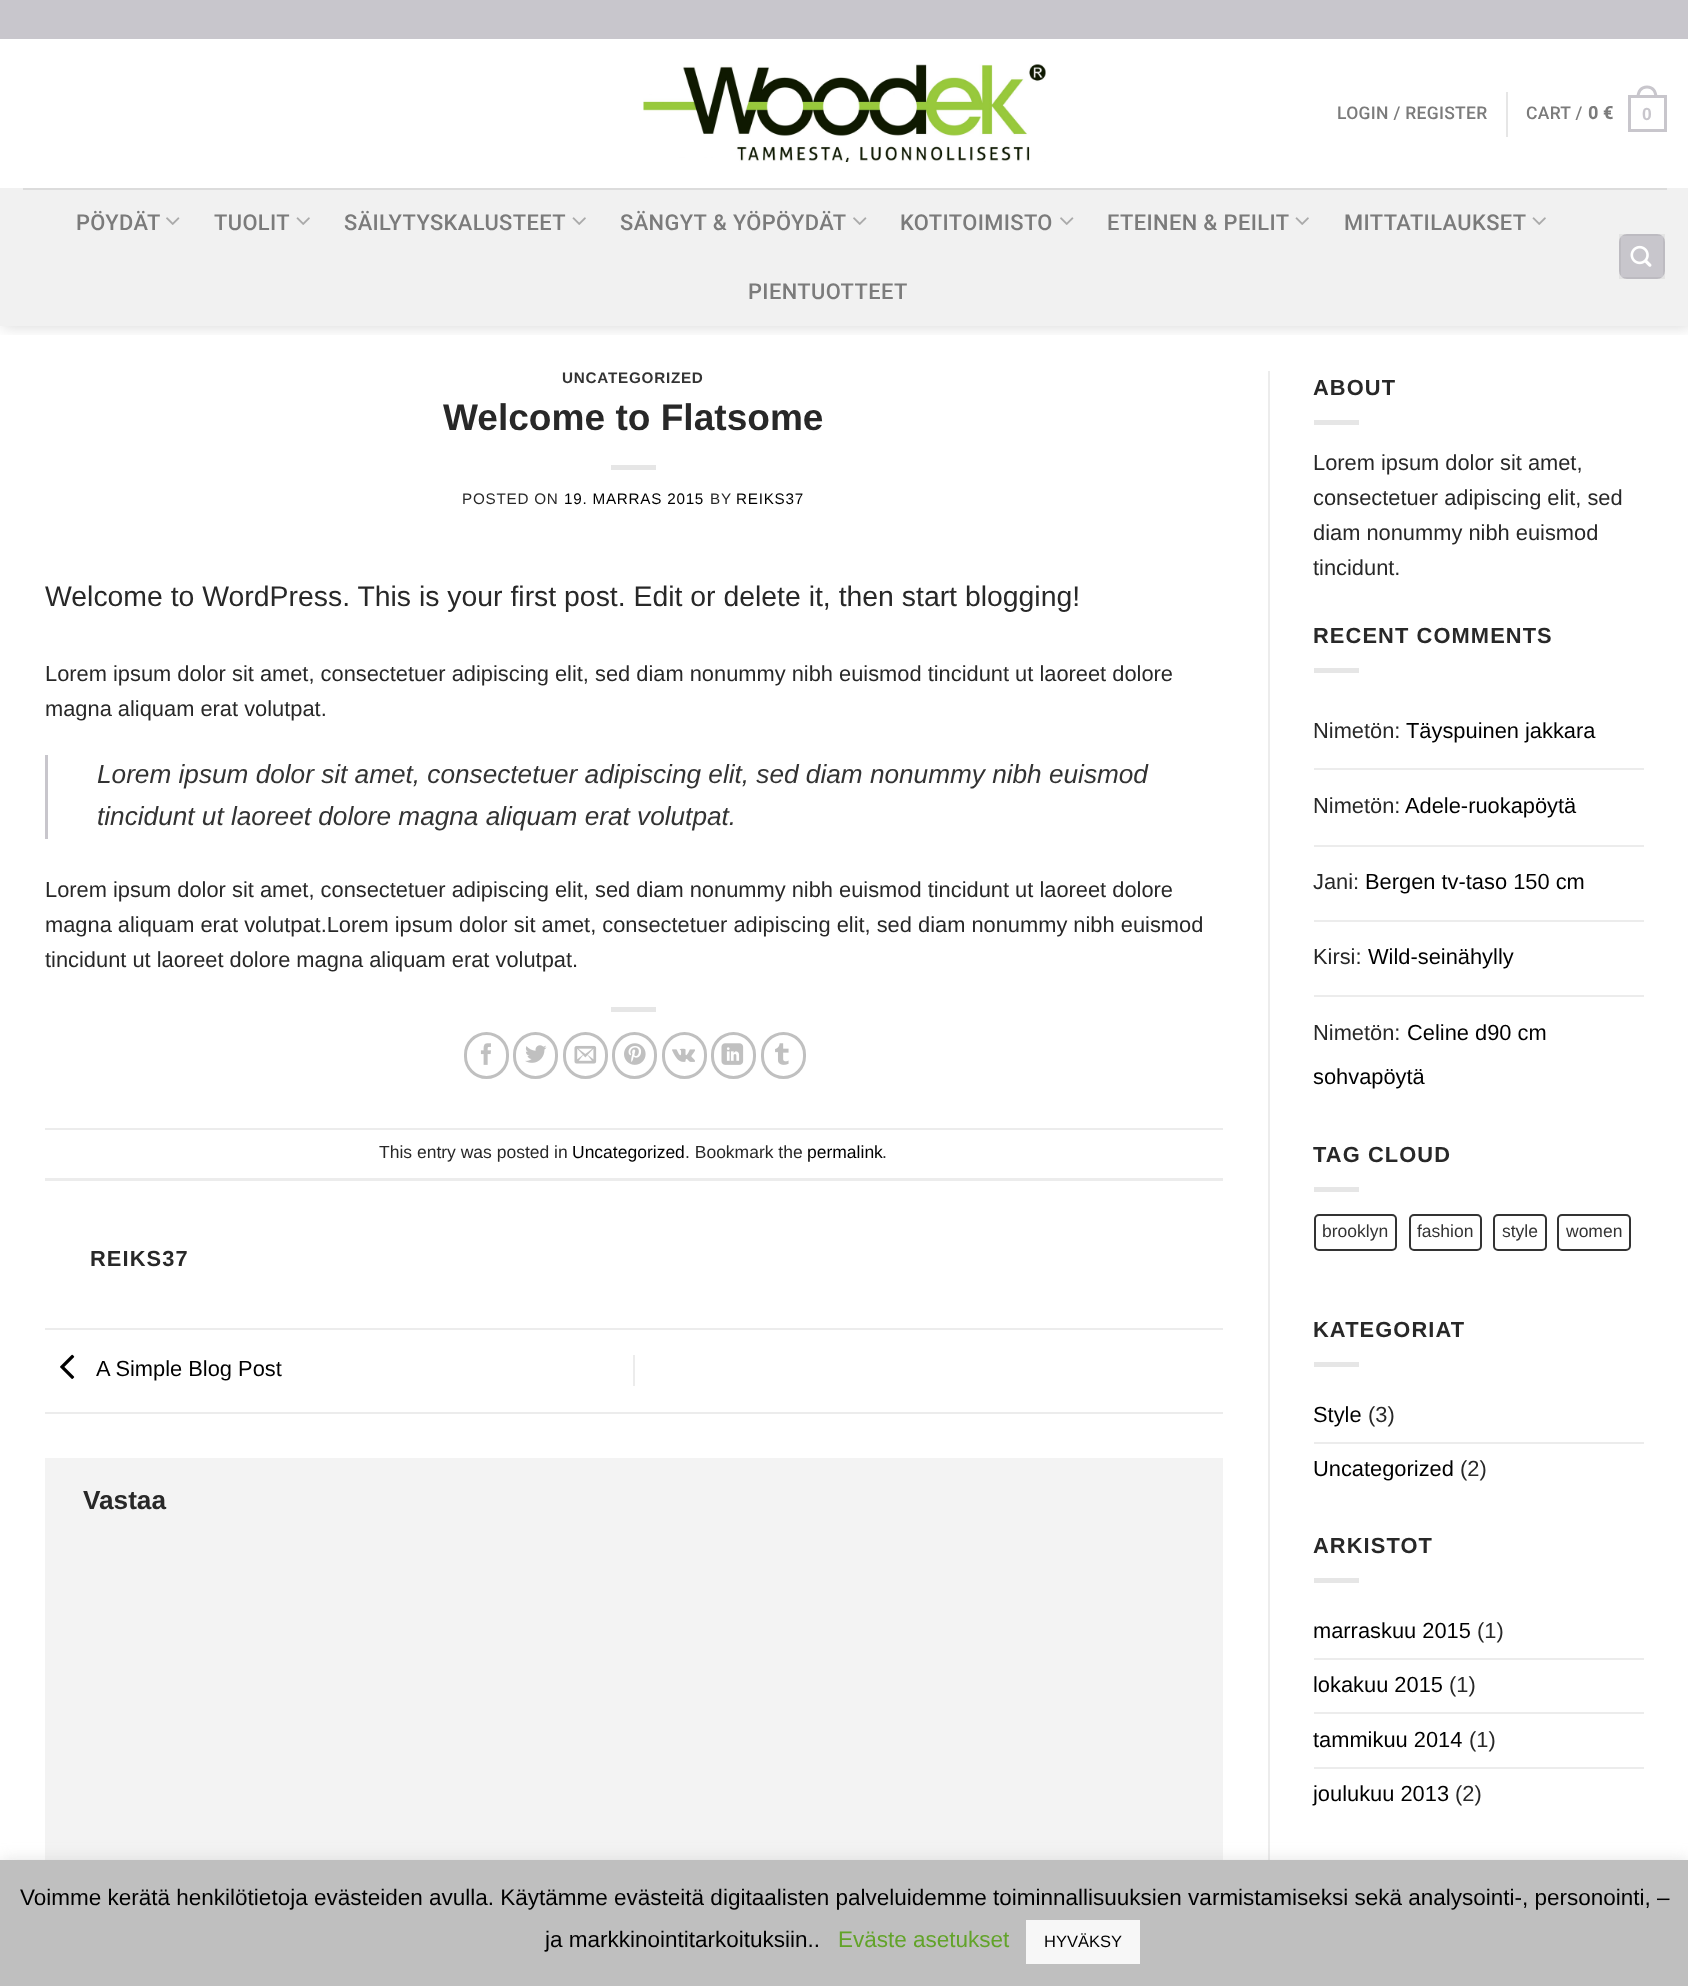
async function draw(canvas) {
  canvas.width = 1688;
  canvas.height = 1986;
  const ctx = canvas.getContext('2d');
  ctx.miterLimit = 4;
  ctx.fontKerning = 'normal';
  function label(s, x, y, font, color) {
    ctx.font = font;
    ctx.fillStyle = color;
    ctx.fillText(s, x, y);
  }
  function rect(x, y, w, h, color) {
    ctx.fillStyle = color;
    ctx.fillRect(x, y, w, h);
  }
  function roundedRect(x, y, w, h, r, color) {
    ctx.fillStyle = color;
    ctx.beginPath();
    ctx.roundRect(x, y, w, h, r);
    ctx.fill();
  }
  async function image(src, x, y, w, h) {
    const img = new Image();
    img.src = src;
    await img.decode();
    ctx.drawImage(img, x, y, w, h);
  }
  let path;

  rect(0, 0, 1688, 1986, '#fff');
  ctx.save();
  ctx.beginPath();
  ctx.rect(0, 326, 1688, 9);
  ctx.clip();
  ctx.fillStyle = '#00000026';
  ctx.filter = 'blur(7.5px)';
  ctx.beginPath();
  ctx.rect(2, 2, 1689, 325);
  ctx.fill();
  ctx.filter = 'none';
  ctx.restore();
  rect(0, 0, 1688, 39, '#c8c6cc');
  await image('assets/img1.png', 643, 64, 403, 98);
  ctx.letterSpacing = '0.3px';
  label('LOGIN / REGISTER', 1337, 119, '500 17.5px Roboto', '#7b7b7b');
  rect(1506, 92, 2, 45, '#e6e6e6');
  label('CART /', 1526, 119, '500 17.5px Roboto', '#7b7b7b');
  label('0 €', 1588, 119, 'bold 17.5px Roboto', '#7b7b7b');
  ctx.strokeStyle = '#c8c6cc';
  ctx.lineWidth = 3;
  ctx.strokeRect(1629.5, 96.5, 36, 34);
  ctx.fillStyle = '#c8c6cc';
  path = new Path2D('M1647 85.5C1654 85.5 1657.5 91 1657.5 97.5H1636.5C1636.5 91 1640 85.5 1647 85.5ZM1647 88.5C1652.5 88.5 1654.5 93 1654.5 97.5H1639.5C1639.5 93 1641.5 88.5 1647 88.5Z');
  ctx.fill(path, 'evenodd');
  label('0', 1642, 120, 'bold 17.5px Liberation Sans', '#c8c6cc');
  rect(0, 188, 1688, 138, '#f1f1f1');
  rect(23, 188, 1644, 2, '#dcdcdc');
  ctx.letterSpacing = '0.4px';
  label('PÖYDÄT', 76, 230, '500 21.85px Roboto', '#7b7b7b');
  await image('assets/img2.png', 166, 217, 14, 8);
  label('TUOLIT', 214, 230, '500 21.85px Roboto', '#7b7b7b');
  await image('assets/img3.png', 296, 217, 14, 8);
  label('SÄILYTYSKALUSTEET', 344, 230, '500 21.85px Roboto', '#7b7b7b');
  await image('assets/img3.png', 572, 217, 14, 8);
  label('SÄNGYT & YÖPÖYDÄT', 620, 230, '500 21.85px Roboto', '#7b7b7b');
  await image('assets/img2.png', 853, 217, 14, 8);
  label('KOTITOIMISTO', 900, 230, '500 21.85px Roboto', '#7b7b7b');
  await image('assets/img2.png', 1060, 217, 14, 8);
  label('ETEINEN & PEILIT', 1107, 230, '500 21.85px Roboto', '#7b7b7b');
  await image('assets/img3.png', 1295, 217, 14, 8);
  label('MITTATILAUKSET', 1344, 230, '500 21.85px Roboto', '#7b7b7b');
  await image('assets/img3.png', 1532, 217, 14, 8);
  label('PIENTUOTTEET', 748, 299, '500 21.85px Roboto', '#7b7b7b');
  roundedRect(1619, 234, 46, 45, 8, '#c8c6cc');
  ctx.strokeStyle = '#0000000d';
  ctx.lineWidth = 2;
  ctx.strokeRect(1620, 235, 44, 43);
  await image('assets/img4.png', 1630, 245, 22, 22);
  ctx.letterSpacing = '0.75px';
  label('UNCATEGORIZED', 562, 383, 'bold 15.25px Liberation Sans', '#333');
  ctx.letterSpacing = '0px';
  label('Welcome to Flatsome', 443, 430, 'bold 37.1px Liberation Sans', '#282828');
  rect(611, 465, 45, 5, '#e6e6e6');
  ctx.letterSpacing = '0.75px';
  label('POSTED ON', 462, 504, '15.25px Liberation Sans', '#282828');
  label('19. MARRAS 2015', 564, 504, '15.25px Liberation Sans', '#000');
  label('BY', 710, 504, '15.25px Liberation Sans', '#282828');
  label('REIKS37', 736, 504, '15.25px Liberation Sans', '#000');
  ctx.letterSpacing = '0px';
  label('Welcome to WordPress. This is your first post. Edit or delete it, then start blogging!', 45, 606, '28.4px Liberation Sans', '#282828');
  label('Lorem ipsum dolor sit amet, consectetuer adipiscing elit, sed diam nonummy nibh euismod tincidunt ut laoreet dolore', 45, 681, '21.85px Liberation Sans', '#282828');
  label('magna aliquam erat volutpat.', 45, 716, '21.85px Liberation Sans', '#282828');
  rect(45, 755, 3, 84, '#c8c6cc');
  label('Lorem ipsum dolor sit amet, consectetuer adipiscing elit, sed diam nonummy nibh euismod', 97, 783, 'italic 26.2px Liberation Sans', '#333');
  label('tincidunt ut laoreet dolore magna aliquam erat volutpat.', 97, 825, 'italic 26.2px Liberation Sans', '#333');
  label('Lorem ipsum dolor sit amet, consectetuer adipiscing elit, sed diam nonummy nibh euismod tincidunt ut laoreet dolore', 45, 897, '21.85px Liberation Sans', '#282828');
  label('magna aliquam erat volutpat.Lorem ipsum dolor sit amet, consectetuer adipiscing elit, sed diam nonummy nibh euismod', 45, 932, '21.85px Liberation Sans', '#282828');
  label('tincidunt ut laoreet dolore magna aliquam erat volutpat.', 45, 967, '21.85px Liberation Sans', '#282828');
  rect(611, 1007, 45, 5, '#e6e6e6');
  ctx.beginPath();
  ctx.roundRect(465.5, 1033.5, 42, 44, 21);
  ctx.strokeStyle = '#c0c0c0';
  ctx.lineWidth = 3;
  ctx.stroke();
  await image('assets/img5.png', 480, 1043, 11, 22);
  ctx.beginPath();
  ctx.roundRect(514.5, 1033.5, 42, 44, 21);
  ctx.stroke();
  await image('assets/img6.png', 525, 1045, 22, 18);
  ctx.beginPath();
  ctx.roundRect(564.5, 1033.5, 42, 44, 21);
  ctx.stroke();
  await image('assets/img7.png', 574, 1045, 23, 19);
  ctx.beginPath();
  ctx.roundRect(613.5, 1033.5, 42, 44, 21);
  ctx.stroke();
  await image('assets/img8.png', 624, 1043, 22, 22);
  ctx.beginPath();
  ctx.roundRect(663.5, 1033.5, 42, 44, 21);
  ctx.stroke();
  await image('assets/img9.png', 672, 1048, 23, 14);
  ctx.beginPath();
  ctx.roundRect(712.5, 1033.5, 42, 44, 21);
  ctx.stroke();
  await image('assets/img10.png', 721, 1043, 23, 22);
  ctx.beginPath();
  ctx.roundRect(762.5, 1033.5, 42, 44, 21);
  ctx.stroke();
  await image('assets/img11.png', 775, 1043, 14, 22);
  rect(45, 1128, 1178, 2, '#ececec');
  rect(45, 1178, 1178, 3, '#ececec');
  label('This entry was posted in', 379, 1158, '17.5px Liberation Sans', '#282828');
  label('Uncategorized', 572, 1158, '17.5px Liberation Sans', '#000');
  label('. Bookmark the', 685, 1158, '17.5px Liberation Sans', '#282828');
  label('permalink', 807, 1158, '17.5px Liberation Sans', '#000');
  label('.', 882, 1158, '17.5px Liberation Sans', '#282828');
  ctx.letterSpacing = '1.1px';
  label('REIKS37', 90, 1266, 'bold 21.85px Liberation Sans', '#282828');
  rect(45, 1328, 1178, 2, '#ececec');
  rect(45, 1412, 1178, 2, '#ececec');
  await image('assets/img12.png', 60, 1354, 15, 25);
  ctx.letterSpacing = '0px';
  label('A Simple Blog Post', 96, 1376, '21.85px Liberation Sans', '#000');
  rect(633, 1355, 2, 31, '#ececec');
  rect(45, 1458, 1178, 402, '#f3f3f3');
  label('Vastaa', 83, 1509, 'bold 26.2px Liberation Sans', '#282828');
  rect(1268, 371, 2, 1489, '#ececec');
  ctx.letterSpacing = '1.1px';
  label('ABOUT', 1313, 395, 'bold 21.85px Liberation Sans', '#282828');
  rect(1314, 420, 45, 5, '#e6e6e6');
  ctx.letterSpacing = '0px';
  label('Lorem ipsum dolor sit amet,', 1313, 470, '21.85px Liberation Sans', '#282828');
  label('consectetuer adipiscing elit, sed', 1313, 505, '21.85px Liberation Sans', '#282828');
  label('diam nonummy nibh euismod', 1313, 540, '21.85px Liberation Sans', '#282828');
  label('tincidunt.', 1313, 575, '21.85px Liberation Sans', '#282828');
  ctx.letterSpacing = '1.1px';
  label('RECENT COMMENTS', 1313, 643, 'bold 21.85px Liberation Sans', '#282828');
  rect(1314, 668, 45, 5, '#e6e6e6');
  ctx.letterSpacing = '0px';
  label('Nimetön:', 1313, 738, '21.85px Liberation Sans', '#282828');
  label('Täyspuinen jakkara', 1406, 738, '21.85px Liberation Sans', '#000');
  rect(1314, 768, 330, 2, '#ececec');
  label('Nimetön:', 1313, 813, '21.85px Liberation Sans', '#282828');
  label('Adele-ruokapöytä', 1405, 813, '21.85px Liberation Sans', '#000');
  rect(1314, 845, 330, 2, '#ececec');
  label('Jani:', 1313, 889, '21.85px Liberation Sans', '#282828');
  label('Bergen tv-taso 150 cm', 1365, 889, '21.85px Liberation Sans', '#000');
  rect(1314, 920, 330, 2, '#ececec');
  label('Kirsi:', 1313, 964, '21.85px Liberation Sans', '#282828');
  label('Wild-seinähylly', 1368, 964, '21.85px Liberation Sans', '#000');
  rect(1314, 995, 330, 2, '#ececec');
  label('Nimetön:', 1313, 1040, '21.85px Liberation Sans', '#282828');
  label('Celine d90 cm', 1407, 1040, '21.85px Liberation Sans', '#000');
  label('sohvapöytä', 1313, 1084, '21.85px Liberation Sans', '#000');
  ctx.letterSpacing = '1.1px';
  label('TAG CLOUD', 1313, 1162, 'bold 21.85px Liberation Sans', '#282828');
  rect(1314, 1187, 45, 5, '#e6e6e6');
  ctx.beginPath();
  ctx.roundRect(1315, 1215, 81, 35, 4);
  ctx.strokeStyle = '#333';
  ctx.lineWidth = 2;
  ctx.stroke();
  ctx.letterSpacing = '0px';
  label('brooklyn', 1322, 1237, '17.5px Liberation Sans', '#333');
  ctx.beginPath();
  ctx.roundRect(1410, 1215, 71, 35, 4);
  ctx.stroke();
  label('fashion', 1417, 1237, '17.5px Liberation Sans', '#333');
  ctx.beginPath();
  ctx.roundRect(1494, 1215, 52, 35, 4);
  ctx.stroke();
  label('style', 1502, 1237, '17.5px Liberation Sans', '#333');
  ctx.beginPath();
  ctx.roundRect(1558, 1215, 72, 35, 4);
  ctx.stroke();
  label('women', 1566, 1237, '17.5px Liberation Sans', '#333');
  ctx.letterSpacing = '1.1px';
  label('KATEGORIAT', 1313, 1337, 'bold 21.85px Liberation Sans', '#282828');
  rect(1314, 1362, 45, 5, '#e6e6e6');
  ctx.letterSpacing = '0px';
  label('Style', 1313, 1422, '21.85px Liberation Sans', '#000');
  label('(3)', 1368, 1422, '21.85px Liberation Sans', '#282828');
  rect(1314, 1442, 330, 2, '#ececec');
  label('Uncategorized', 1313, 1476, '21.85px Liberation Sans', '#000');
  label('(2)', 1460, 1476, '21.85px Liberation Sans', '#282828');
  ctx.letterSpacing = '1.1px';
  label('ARKISTOT', 1313, 1553, 'bold 21.85px Liberation Sans', '#282828');
  rect(1314, 1578, 45, 5, '#e6e6e6');
  ctx.letterSpacing = '0px';
  label('marraskuu 2015', 1313, 1638, '21.85px Liberation Sans', '#000');
  label('(1)', 1477, 1638, '21.85px Liberation Sans', '#282828');
  rect(1314, 1658, 330, 2, '#ececec');
  label('lokakuu 2015', 1313, 1692, '21.85px Liberation Sans', '#000');
  label('(1)', 1449, 1692, '21.85px Liberation Sans', '#282828');
  rect(1314, 1712, 330, 2, '#ececec');
  label('tammikuu 2014', 1313, 1747, '21.85px Liberation Sans', '#000');
  label('(1)', 1469, 1747, '21.85px Liberation Sans', '#282828');
  rect(1314, 1767, 330, 2, '#ececec');
  label('joulukuu 2013', 1313, 1801, '21.85px Liberation Sans', '#000');
  label('(2)', 1455, 1801, '21.85px Liberation Sans', '#282828');
  ctx.fillStyle = '#acabab4d';
  ctx.filter = 'blur(7.5px)';
  ctx.beginPath();
  ctx.rect(0, 1859, 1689, 126);
  ctx.fill();
  ctx.filter = 'none';
  rect(0, 1860, 1688, 126, '#bfbfbf');
  label('Voimme kerätä henkilötietoja evästeiden avulla. Käytämme evästeitä digitaalisten palveluidemme toiminnallisuuksien varmistamiseksi sekä analysointi-, personointi, –', 20, 1905, '22.5px Liberation Sans', '#000');
  label('ja markkinointitarkoituksiin..', 545, 1947, '22.5px Liberation Sans', '#000');
  label('Eväste asetukset', 838, 1947, '22.5px Liberation Sans', '#62a329');
  rect(1026, 1920, 114, 44, '#f7f7f7');
  label('HYVÄKSY', 1044, 1947, '16.5px Liberation Sans', '#000');
}

draw(document.querySelector('canvas'));
